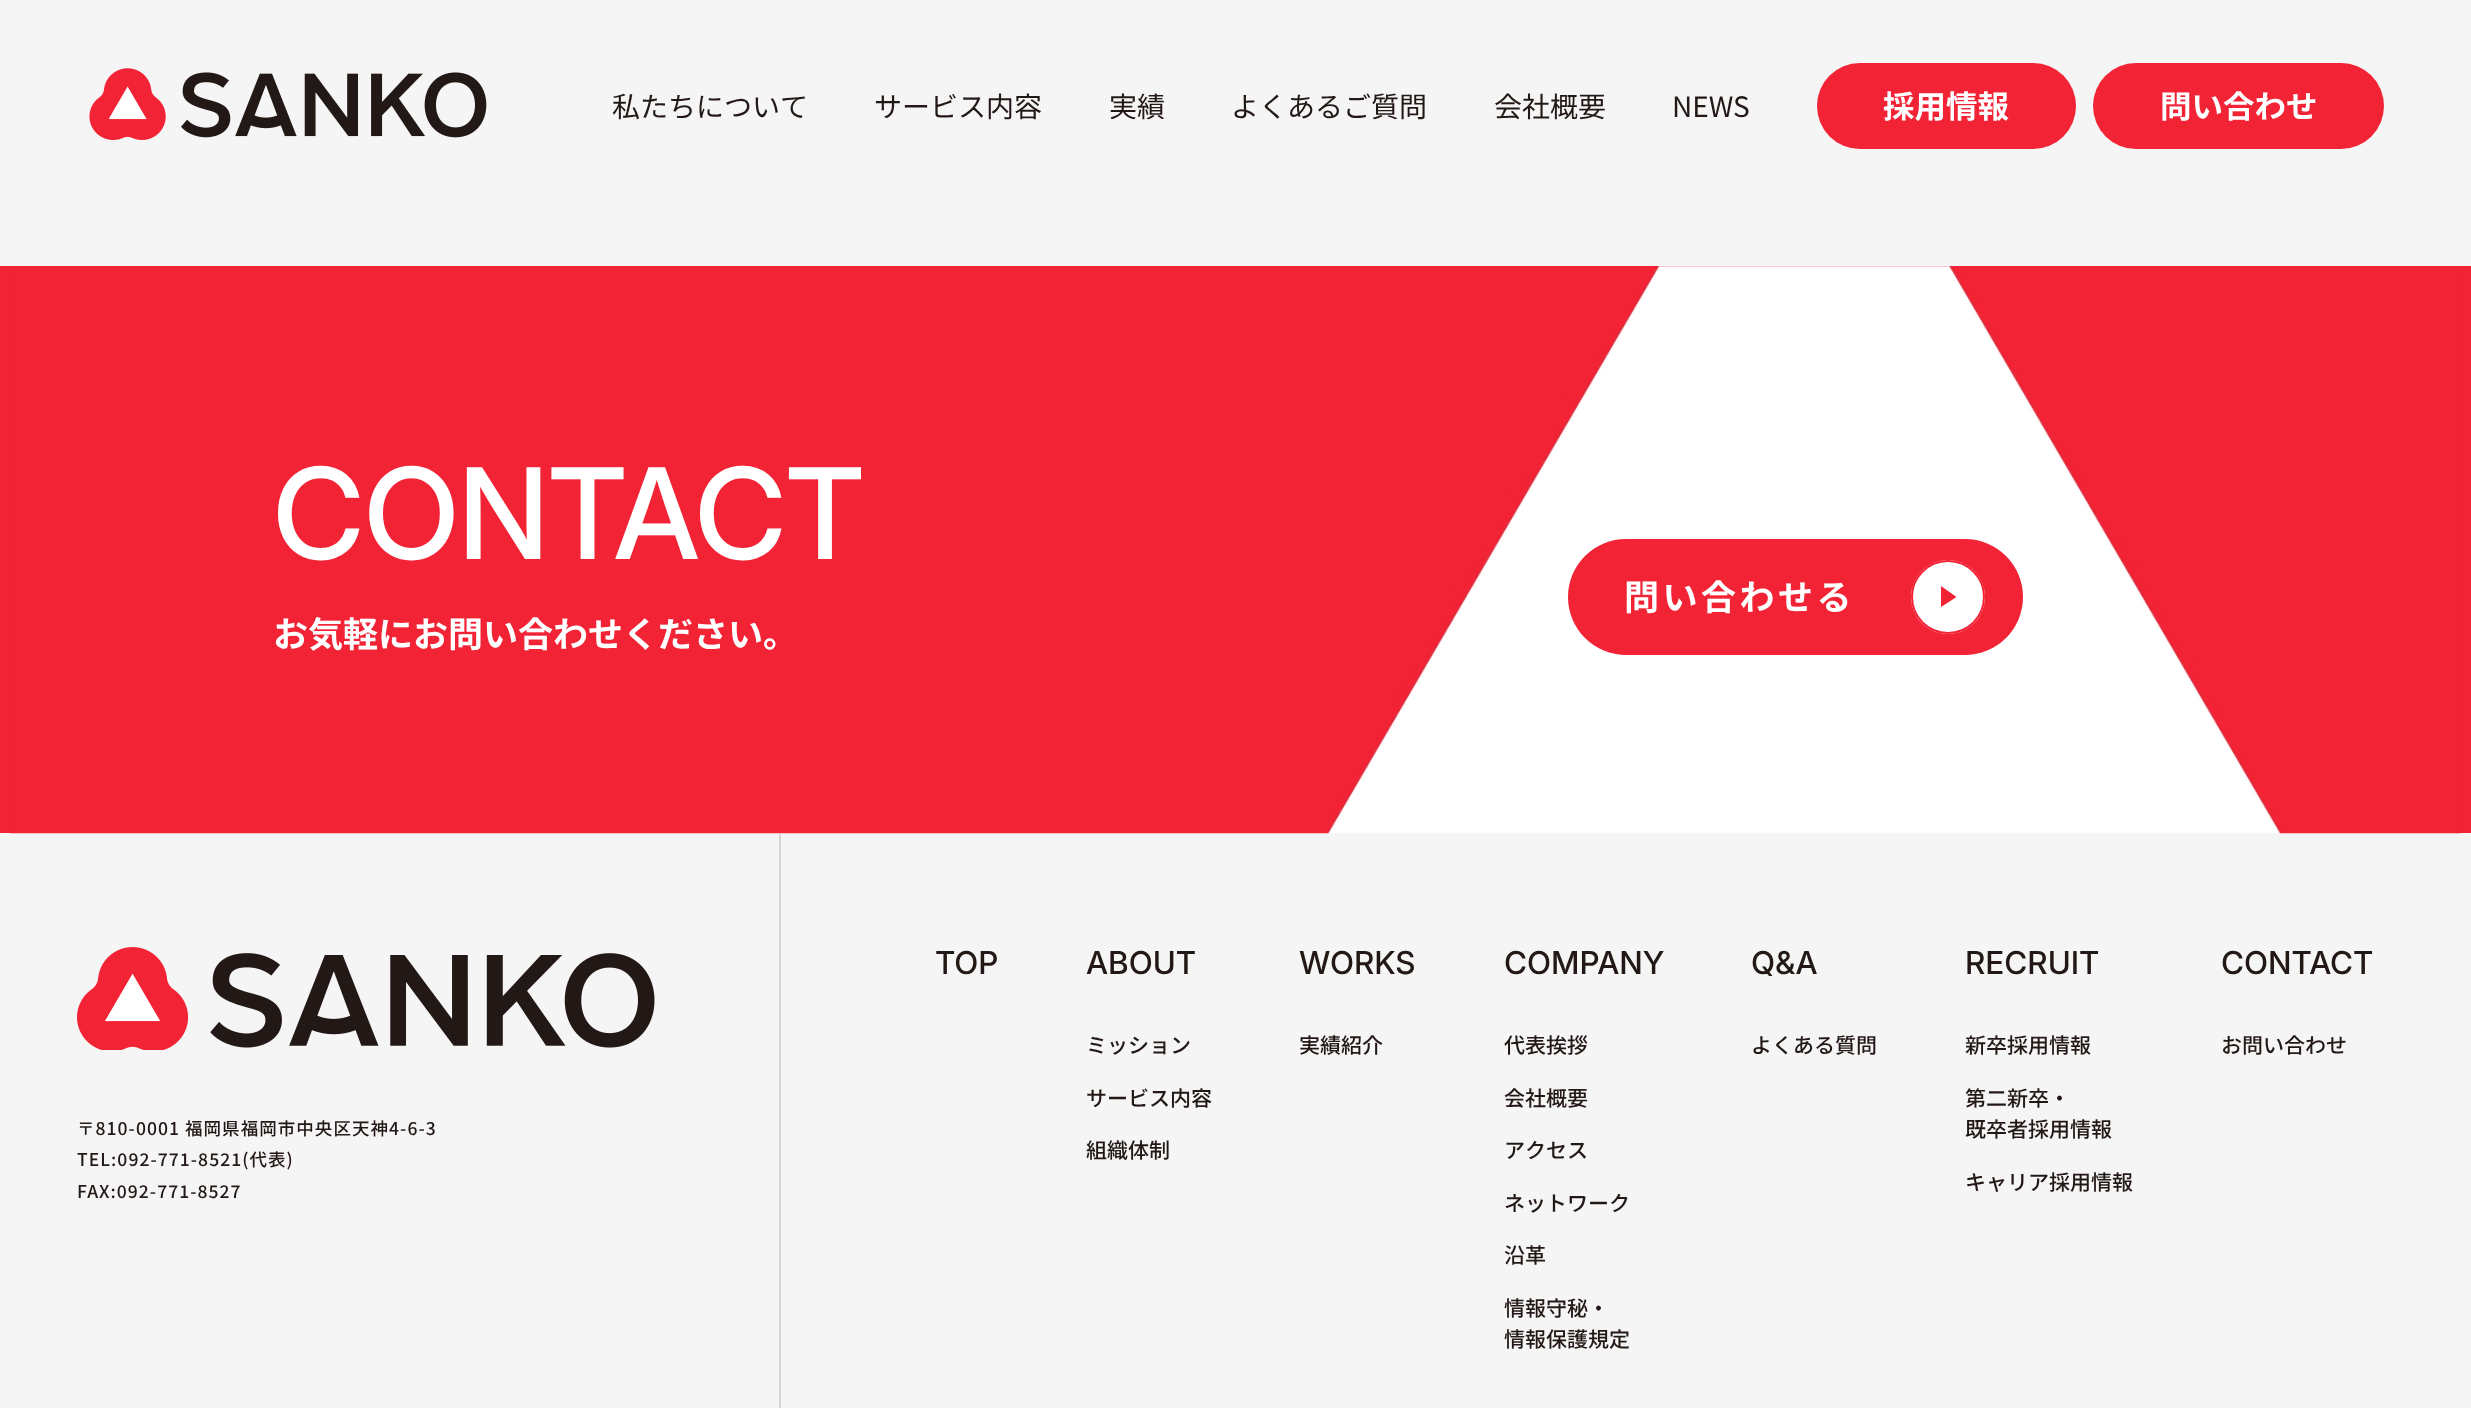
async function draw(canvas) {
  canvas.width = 2471;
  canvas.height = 1408;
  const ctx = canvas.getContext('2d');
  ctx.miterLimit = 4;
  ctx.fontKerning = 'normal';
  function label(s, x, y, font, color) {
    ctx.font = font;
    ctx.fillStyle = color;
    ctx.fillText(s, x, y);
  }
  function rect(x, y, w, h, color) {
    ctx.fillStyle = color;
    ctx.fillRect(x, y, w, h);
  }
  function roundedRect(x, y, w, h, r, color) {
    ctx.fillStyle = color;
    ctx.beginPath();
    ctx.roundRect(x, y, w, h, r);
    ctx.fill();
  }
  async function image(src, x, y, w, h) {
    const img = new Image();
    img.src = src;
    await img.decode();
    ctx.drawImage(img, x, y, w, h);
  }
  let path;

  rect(0, 0, 2471, 1408, '#f5f5f5');
  await image('assets/img1.png', 89, 68, 398, 72);
  label('私たちについて', 612, 117, '28px Noto Sans JP', '#221815');
  label('サービス内容', 874, 117, '28px Noto Sans JP', '#221815');
  label('実績', 1109, 117, '28px Noto Sans JP', '#221815');
  label('よくあるご質問', 1231, 117, '28px Noto Sans JP', '#221815');
  label('会社概要', 1494, 117, '28px Noto Sans JP', '#221815');
  label('NEWS', 1672, 117, '28px Noto Sans JP', '#221815');
  roundedRect(1817, 63, 259, 86, 43, '#f22335');
  label('採用情報', 1883, 118, 'bold 31.5px Noto Sans JP', '#fff');
  roundedRect(2093, 63, 291, 86, 43, '#f22335');
  label('問い合わせ', 2160, 118, 'bold 31.5px Noto Sans JP', '#fff');
  rect(0, 266, 2471, 567, '#f22335');
  await image('assets/img2.png', 10, 266, 2451, 568);
  label('CONTACT', 273, 559, '500 126px Inter', '#fff');
  label('お気軽にお問い合わせください。', 273, 647, 'bold 35px Noto Sans JP', '#fff');
  roundedRect(1568, 539, 455, 116, 58, '#f22335');
  ctx.letterSpacing = '3.5px';
  label('問い合わせる', 1624, 610, 'bold 35px Noto Sans JP', '#fff');
  ctx.beginPath();
  ctx.arc(1948, 597, 37, 0, 2 * Math.PI);
  ctx.fill();
  ctx.fillStyle = '#f22335';
  path = new Path2D('M1956.5 597L1941 607V586Z');
  ctx.fill(path);
  ctx.beginPath();
  ctx.arc(1948, 597, 36, 0, 2 * Math.PI);
  ctx.strokeStyle = '#f22335';
  ctx.lineWidth = 2;
  ctx.stroke();
  await image('assets/img3.png', 77, 947, 578, 103);
  ctx.letterSpacing = '1.05px';
  label('〒810-0001 福岡県福岡市中央区天神4-6-3', 77, 1135, '500 17.5px Noto Sans JP', '#221815');
  label('TEL:092-771-8521(代表)', 77, 1166, '500 17.5px Noto Sans JP', '#221815');
  label('FAX:092-771-8527', 77, 1198, '500 17.5px Noto Sans JP', '#221815');
  rect(779, 833, 2, 575, '#d5d5d5');
  ctx.letterSpacing = '0px';
  label('TOP', 935, 974, '500 31.5px "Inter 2"', '#221815');
  label('ABOUT', 1086, 974, '500 31.5px "Inter 2"', '#221815');
  label('ミッション', 1086, 1053, '500 21px Noto Sans JP', '#221815');
  label('サービス内容', 1086, 1106, '500 21px Noto Sans JP', '#221815');
  label('組織体制', 1086, 1158, '500 21px Noto Sans JP', '#221815');
  label('WORKS', 1299, 974, '500 31.5px "Inter 2"', '#221815');
  label('実績紹介', 1299, 1053, '500 21px Noto Sans JP', '#221815');
  label('COMPANY', 1504, 974, '500 31.5px "Inter 2"', '#221815');
  label('代表挨拶', 1504, 1053, '500 21px Noto Sans JP', '#221815');
  label('会社概要', 1504, 1106, '500 21px Noto Sans JP', '#221815');
  label('アクセス', 1504, 1158, '500 21px Noto Sans JP', '#221815');
  label('ネットワーク', 1504, 1211, '500 21px Noto Sans JP', '#221815');
  label('沿革', 1504, 1263, '500 21px Noto Sans JP', '#221815');
  label('情報守秘・', 1504, 1316, '500 21px Noto Sans JP', '#221815');
  label('情報保護規定', 1504, 1347, '500 21px Noto Sans JP', '#221815');
  label('Q&A', 1751, 974, '500 31.5px "Inter 2"', '#221815');
  label('よくある質問', 1751, 1053, '500 21px Noto Sans JP', '#221815');
  label('RECRUIT', 1965, 974, '500 31.5px "Inter 2"', '#221815');
  label('新卒採用情報', 1965, 1053, '500 21px Noto Sans JP', '#221815');
  label('第二新卒・', 1965, 1106, '500 21px Noto Sans JP', '#221815');
  label('既卒者採用情報', 1965, 1137, '500 21px Noto Sans JP', '#221815');
  label('キャリア採用情報', 1965, 1190, '500 21px Noto Sans JP', '#221815');
  label('CONTACT', 2221, 974, '500 31.5px "Inter 2"', '#221815');
  label('お問い合わせ', 2221, 1053, '500 21px Noto Sans JP', '#221815');
}

draw(document.querySelector('canvas'));
